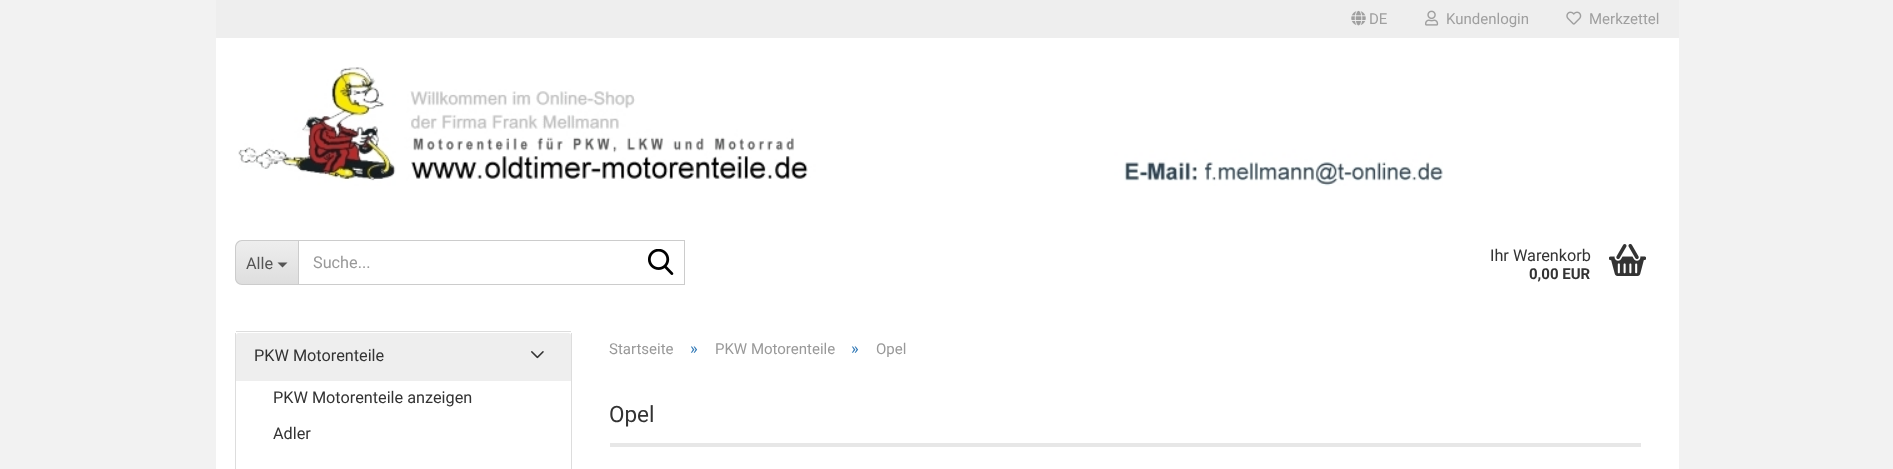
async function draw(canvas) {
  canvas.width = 1893;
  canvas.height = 469;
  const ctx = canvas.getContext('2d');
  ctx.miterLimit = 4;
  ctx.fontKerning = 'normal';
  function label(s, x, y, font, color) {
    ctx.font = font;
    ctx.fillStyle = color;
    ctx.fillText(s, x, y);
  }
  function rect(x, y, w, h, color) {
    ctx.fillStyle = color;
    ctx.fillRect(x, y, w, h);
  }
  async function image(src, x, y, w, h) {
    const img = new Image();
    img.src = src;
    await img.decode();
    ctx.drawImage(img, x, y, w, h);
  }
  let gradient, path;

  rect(0, 0, 1893, 469, '#f2f2f2');
  rect(216, 38, 1463, 431, '#fff');
  rect(216, 0, 1463, 38, '#eee');
  await image('assets/img1.png', 1351, 10, 15, 16);
  label('DE', 1369, 24, '15px Roboto', '#9f9f9f');
  await image('assets/img2.png', 1425, 10, 14, 16);
  label('Kundenlogin', 1446, 24, '15px Roboto', '#9f9f9f');
  await image('assets/img3.png', 1566, 11, 16, 14);
  label('Merkzettel', 1589, 24, '15px Roboto', '#9f9f9f');
  await image('assets/img4.png', 238, 67, 1205, 119);
  ctx.save();
  ctx.beginPath();
  ctx.roundRect(235, 240, 63, 45, [8, 0, 0, 8]);
  ctx.clip();
  gradient = ctx.createLinearGradient(267, 241, 267, 284);
  gradient.addColorStop(0, '#eee');
  gradient.addColorStop(1, '#dedede');
  ctx.fillStyle = gradient;
  ctx.fillRect(235, 241, 63, 43);
  ctx.restore();
  ctx.fillStyle = '#ccc';
  path = new Path2D('M242 240H298V285H242C238 285 235 282 235 278V248C235 243 238 240 242 240ZM242 241H298V284H242C239 284 236 281 236 278V248C236 244 239 241 242 241Z');
  ctx.fill(path, 'evenodd');
  label('Alle', 246, 269, '16.25px Roboto', '#555');
  path = new Path2D('M277.5 262.5H287.5L282.5 267.5Z');
  ctx.fill(path);
  ctx.strokeStyle = '#ccc';
  ctx.strokeRect(298.5, 240.5, 386, 44);
  label('Suche...', 313, 268, '16.25px Roboto', '#999');
  await image('assets/img5.png', 648, 249, 26, 26);
  label('Ihr Warenkorb', 1490, 261, '16.25px Roboto', '#333');
  label('0,00 EUR', 1529, 279, 'bold 15px Roboto', '#333');
  await image('assets/img6.png', 1609, 243, 37, 33);
  rect(236, 331, 335, 1, '#ddd');
  rect(571, 333, 1, 136, '#ddd');
  rect(235, 333, 1, 136, '#ddd');
  ctx.fillStyle = '#eee';
  ctx.beginPath();
  ctx.roundRect(236, 333, 335, 48, [2.5, 2.5, 0, 0]);
  ctx.fill();
  label('PKW Motorenteile', 254, 361, '16.25px Roboto', '#333');
  await image('assets/img7.png', 531, 351, 13, 8);
  label('PKW Motorenteile anzeigen', 273, 403, '16.25px Roboto', '#333');
  label('Adler', 273, 439, '16.25px Roboto', '#333');
  label('Startseite', 609, 354, '15px Roboto', '#999');
  label('»', 690, 354, '16.25px Roboto', '#337ab7');
  label('PKW Motorenteile', 715, 354, '15px Roboto', '#999');
  label('»', 851, 354, '16.25px Roboto', '#337ab7');
  label('Opel', 876, 354, '15px Roboto', '#999');
  rect(610, 443, 1031, 4, '#e7e7e7');
  label('Opel', 609, 422, '22.5px Roboto', '#333');
}

draw(document.querySelector('canvas'));
